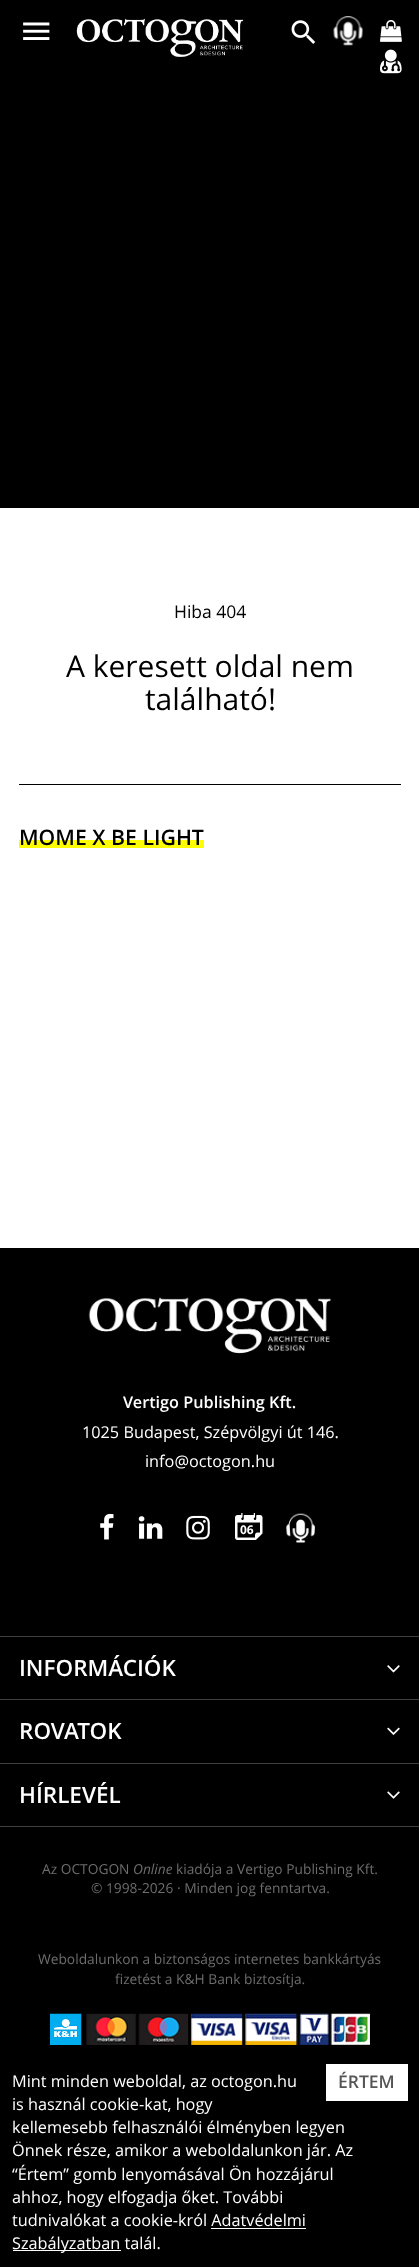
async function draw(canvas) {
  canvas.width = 419;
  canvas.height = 2267;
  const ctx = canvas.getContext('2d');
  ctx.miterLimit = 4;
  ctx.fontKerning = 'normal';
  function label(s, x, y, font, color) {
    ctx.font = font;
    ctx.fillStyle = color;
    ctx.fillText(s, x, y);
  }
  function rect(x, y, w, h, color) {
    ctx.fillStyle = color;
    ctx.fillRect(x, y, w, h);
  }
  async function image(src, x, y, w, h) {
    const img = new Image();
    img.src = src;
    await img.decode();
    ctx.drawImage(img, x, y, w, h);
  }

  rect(0, 0, 419, 2267, '#000');
  await image('assets/img1.png', 23, 22, 27, 18);
  await image('assets/img2.png', 76, 18, 168, 39);
  await image('assets/img3.png', 291, 20, 25, 24);
  await image('assets/img4.png', 333, 16, 30, 30);
  await image('assets/img5.png', 380, 20, 22, 22);
  await image('assets/img6.png', 380, 49, 22, 25);
  rect(0, 508, 419, 257, '#fff');
  label('Hiba 404', 174, 618, '17.5px Open Sans', '#000');
  label('A keresett oldal nem', 66, 677, '30px Open Sans', '#000');
  label('található!', 145, 710, '30px Open Sans', '#000');
  rect(0, 765, 419, 483, '#fff');
  rect(19, 784, 382, 1, '#000');
  rect(19, 840, 185, 8, '#fffe01');
  label('MOME X BE LIGHT', 19, 845, '600 21.25px Open Sans', '#000');
  rect(0, 1636, 419, 1, '#404040');
  await image('assets/img7.png', 88, 1297, 244, 57);
  label('Vertigo Publishing Kft.', 123, 1408, '600 16.25px Open Sans', '#fff');
  label('1025 Budapest, Szépvölgyi út 146.', 82, 1438, '16.25px Open Sans', '#fff');
  label('info@octogon.hu', 145, 1467, '16.25px Open Sans', '#fff');
  await image('assets/img8.png', 100, 1513, 14, 27);
  await image('assets/img9.png', 138, 1516, 25, 23);
  await image('assets/img10.png', 186, 1515, 24, 25);
  await image('assets/img11.png', 235, 1513, 28, 27);
  label('06', 240, 1534, 'bold 12px Open Sans', '#fff');
  await image('assets/img12.png', 286, 1513, 29, 30);
  rect(0, 1699, 419, 1, '#404040');
  label('INFORMÁCIÓK', 19, 1676, '600 22.5px Open Sans', '#fff');
  await image('assets/img13.png', 387, 1665, 13, 8);
  rect(0, 1763, 419, 1, '#404040');
  label('ROVATOK', 19, 1739, '600 22.5px Open Sans', '#fff');
  await image('assets/img14.png', 387, 1727, 13, 8);
  rect(0, 1826, 419, 1, '#404040');
  label('HÍRLEVÉL', 19, 1803, '600 22.5px Open Sans', '#fff');
  await image('assets/img15.png', 387, 1791, 13, 8);
  label('Az OCTOGON', 42, 1874, '13.75px Open Sans', '#6d6d6d');
  label('Online', 133, 1874, 'italic 13.75px Open Sans', '#6d6d6d');
  label('kiadója a Vertigo Publishing Kft.', 176, 1874, '13.75px Open Sans', '#6d6d6d');
  label('© 1998-2026 · Minden jog fenntartva.', 91, 1893, '13.75px Open Sans', '#6d6d6d');
  label('Weboldalunkon a biztonságos internetes bankkártyás', 38, 1964, '13.75px Open Sans', '#6d6d6d');
  label('fizetést a K&H Bank biztosítja.', 115, 1984, '13.75px Open Sans', '#6d6d6d');
  await image('assets/img16.png', 50, 2013, 32, 32);
  await image('assets/img17.png', 86, 2013, 284, 32);
  label('Mint minden weboldal, az octogon.hu', 12, 2087, '16.25px Open Sans', '#fff');
  label('is használ cookie-kat, hogy', 12, 2110, '16.25px Open Sans', '#fff');
  label('kellemesebb felhasználói élményben legyen', 12, 2133, '16.25px Open Sans', '#fff');
  label('Önnek része, amikor a weboldalunkon jár. Az', 12, 2156, '16.25px Open Sans', '#fff');
  label('“Értem” gomb lenyomásával Ön hozzájárul', 12, 2180, '16.25px Open Sans', '#fff');
  label('ahhoz, hogy elfogadja őket. További', 12, 2203, '16.25px Open Sans', '#fff');
  label('tudnivalókat a cookie-król Adatvédelmi', 12, 2226, '16.25px Open Sans', '#fff');
  rect(13, 2250, 108, 1, '#fff');
  label('Szabályzatban talál.', 12, 2249, '16.25px Open Sans', '#fff');
  rect(211, 2228, 95, 1, '#fff');
  rect(326, 2064, 82, 37, '#fff');
  label('ÉRTEM', 338, 2088, '600 17.5px Open Sans', '#555');
}

draw(document.querySelector('canvas'));
